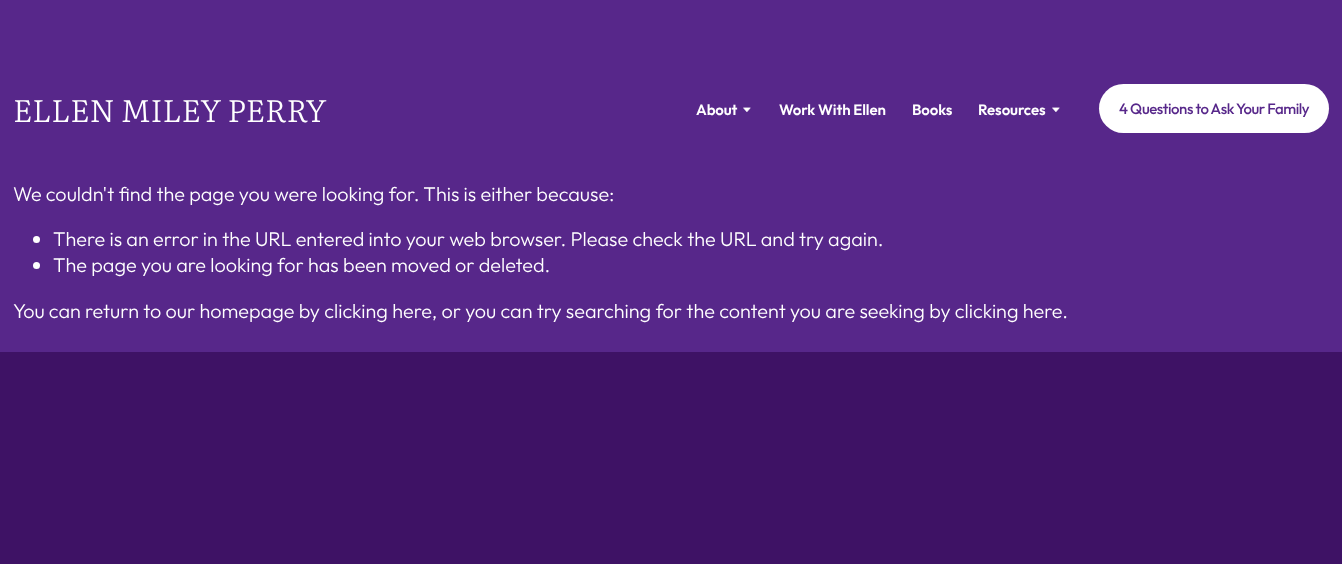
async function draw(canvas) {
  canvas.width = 1342;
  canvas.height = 564;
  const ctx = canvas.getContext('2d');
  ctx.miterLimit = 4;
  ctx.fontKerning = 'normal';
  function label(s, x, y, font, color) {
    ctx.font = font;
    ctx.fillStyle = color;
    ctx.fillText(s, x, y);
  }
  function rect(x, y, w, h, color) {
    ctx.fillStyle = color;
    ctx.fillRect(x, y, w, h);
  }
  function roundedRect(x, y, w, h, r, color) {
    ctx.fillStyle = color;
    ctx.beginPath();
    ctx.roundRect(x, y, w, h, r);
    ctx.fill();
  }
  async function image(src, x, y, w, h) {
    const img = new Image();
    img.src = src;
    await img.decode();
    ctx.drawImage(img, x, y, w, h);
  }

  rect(0, 0, 1342, 564, '#57278a');
  label('ELLEN MILEY PERRY', 13, 122, '300 31.1px Literata', '#fff');
  ctx.letterSpacing = '-0.1px';
  label('About', 696, 115, '600 15px Outfit', '#fff');
  await image('assets/img1.png', 743, 107, 8, 5);
  label('Work With Ellen', 779, 115, '600 15px Outfit', '#fff');
  label('Books', 912, 115, '600 15px Outfit', '#fff');
  label('Resources', 978, 115, '600 15px Outfit', '#fff');
  await image('assets/img1.png', 1052, 107, 8, 5);
  roundedRect(1099, 84, 230, 49, 24.5, '#fff');
  ctx.letterSpacing = '-0.45px';
  label('4 Questions to Ask Your Family', 1119, 114, '500 15px Outfit', '#57278a');
  ctx.letterSpacing = '0px';
  label('We couldn\'t find the page you were looking for. This is either because:', 13, 201, '300 19.83px Outfit', '#fff');
  ctx.beginPath();
  ctx.arc(36.5, 239.5, 3.5, 0, 2 * Math.PI);
  ctx.fill();
  label('There is an error in the URL entered into your web browser. Please check the URL and try again.', 53, 246, '300 19.83px Outfit', '#fff');
  ctx.beginPath();
  ctx.arc(36.5, 265.5, 3.5, 0, 2 * Math.PI);
  ctx.fill();
  label('The page you are looking for has been moved or deleted.', 53, 272, '300 19.83px Outfit', '#fff');
  label('You can return to our homepage by clicking here, or you can try searching for the content you are seeking by clicking here.', 13, 318, '300 19.83px Outfit', '#fff');
  rect(0, 352, 1342, 212, '#3e1265');
}

draw(document.querySelector('canvas'));
